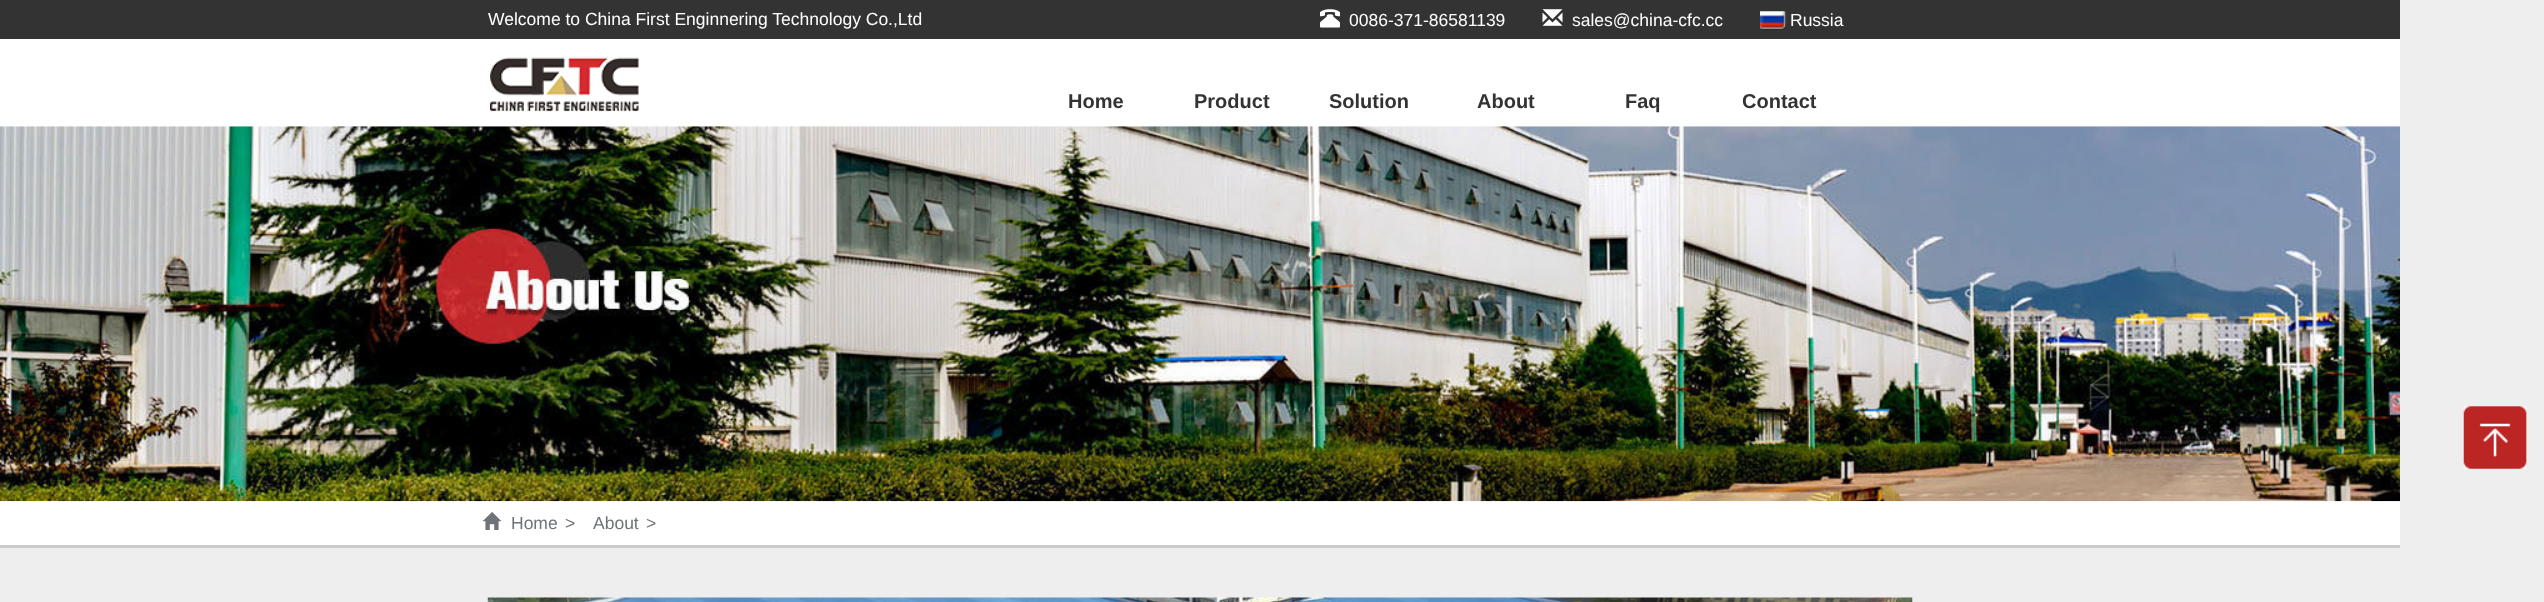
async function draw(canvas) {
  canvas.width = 2544;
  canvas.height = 602;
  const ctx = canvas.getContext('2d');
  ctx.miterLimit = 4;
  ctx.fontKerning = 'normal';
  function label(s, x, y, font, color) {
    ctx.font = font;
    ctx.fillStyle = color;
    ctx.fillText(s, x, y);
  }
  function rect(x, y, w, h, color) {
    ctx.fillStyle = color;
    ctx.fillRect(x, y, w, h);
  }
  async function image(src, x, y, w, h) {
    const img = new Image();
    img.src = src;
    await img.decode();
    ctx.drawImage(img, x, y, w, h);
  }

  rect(0, 0, 2544, 602, '#eee');
  rect(0, 0, 2400, 39, '#333');
  label('Welcome to China First Enginnering Technology Co.,Ltd', 488, 25, '17.5px Liberation Sans', '#fff');
  await image('assets/img1.png', 1320, 9, 20, 19);
  label('0086-371-86581139', 1349, 26, '17.5px Liberation Sans', '#fff');
  await image('assets/img2.png', 1542, 9, 21, 17);
  label('sales@china-cfc.cc', 1572, 26, '17.5px Liberation Sans', '#fff');
  await image('assets/img3.png', 1760, 11, 27, 19);
  label('Russia', 1790, 26, '17.5px Liberation Sans', '#fff');
  rect(0, 39, 2400, 88, '#fff');
  await image('assets/img4.png', 490, 57, 149, 55);
  label('Home', 1068, 108, 'bold 20px Liberation Sans', '#333');
  label('Product', 1194, 108, 'bold 20px Liberation Sans', '#333');
  label('Solution', 1329, 108, 'bold 20px Liberation Sans', '#333');
  label('About', 1477, 108, 'bold 20px Liberation Sans', '#333');
  label('Faq', 1625, 108, 'bold 20px Liberation Sans', '#333');
  label('Contact', 1742, 108, 'bold 20px Liberation Sans', '#333');
  rect(0, 501, 2400, 44, '#fff');
  await image('assets/img5.png', 0, 126, 2400, 376);
  await image('assets/img6.png', 2463, 406, 64, 63);
  rect(0, 545, 2400, 3, '#ccc');
  await image('assets/img7.png', 482, 512, 20, 18);
  label('Home', 511, 529, '17.5px Liberation Sans', '#6e7378');
  label('>', 565, 529, '17.5px Liberation Sans', '#6e7378');
  label('About', 593, 529, '17.5px Liberation Sans', '#6e7378');
  label('>', 646, 529, '17.5px Liberation Sans', '#6e7378');
  await image('assets/img8.png', 487, 597, 1426, 5);
}

draw(document.querySelector('canvas'));
